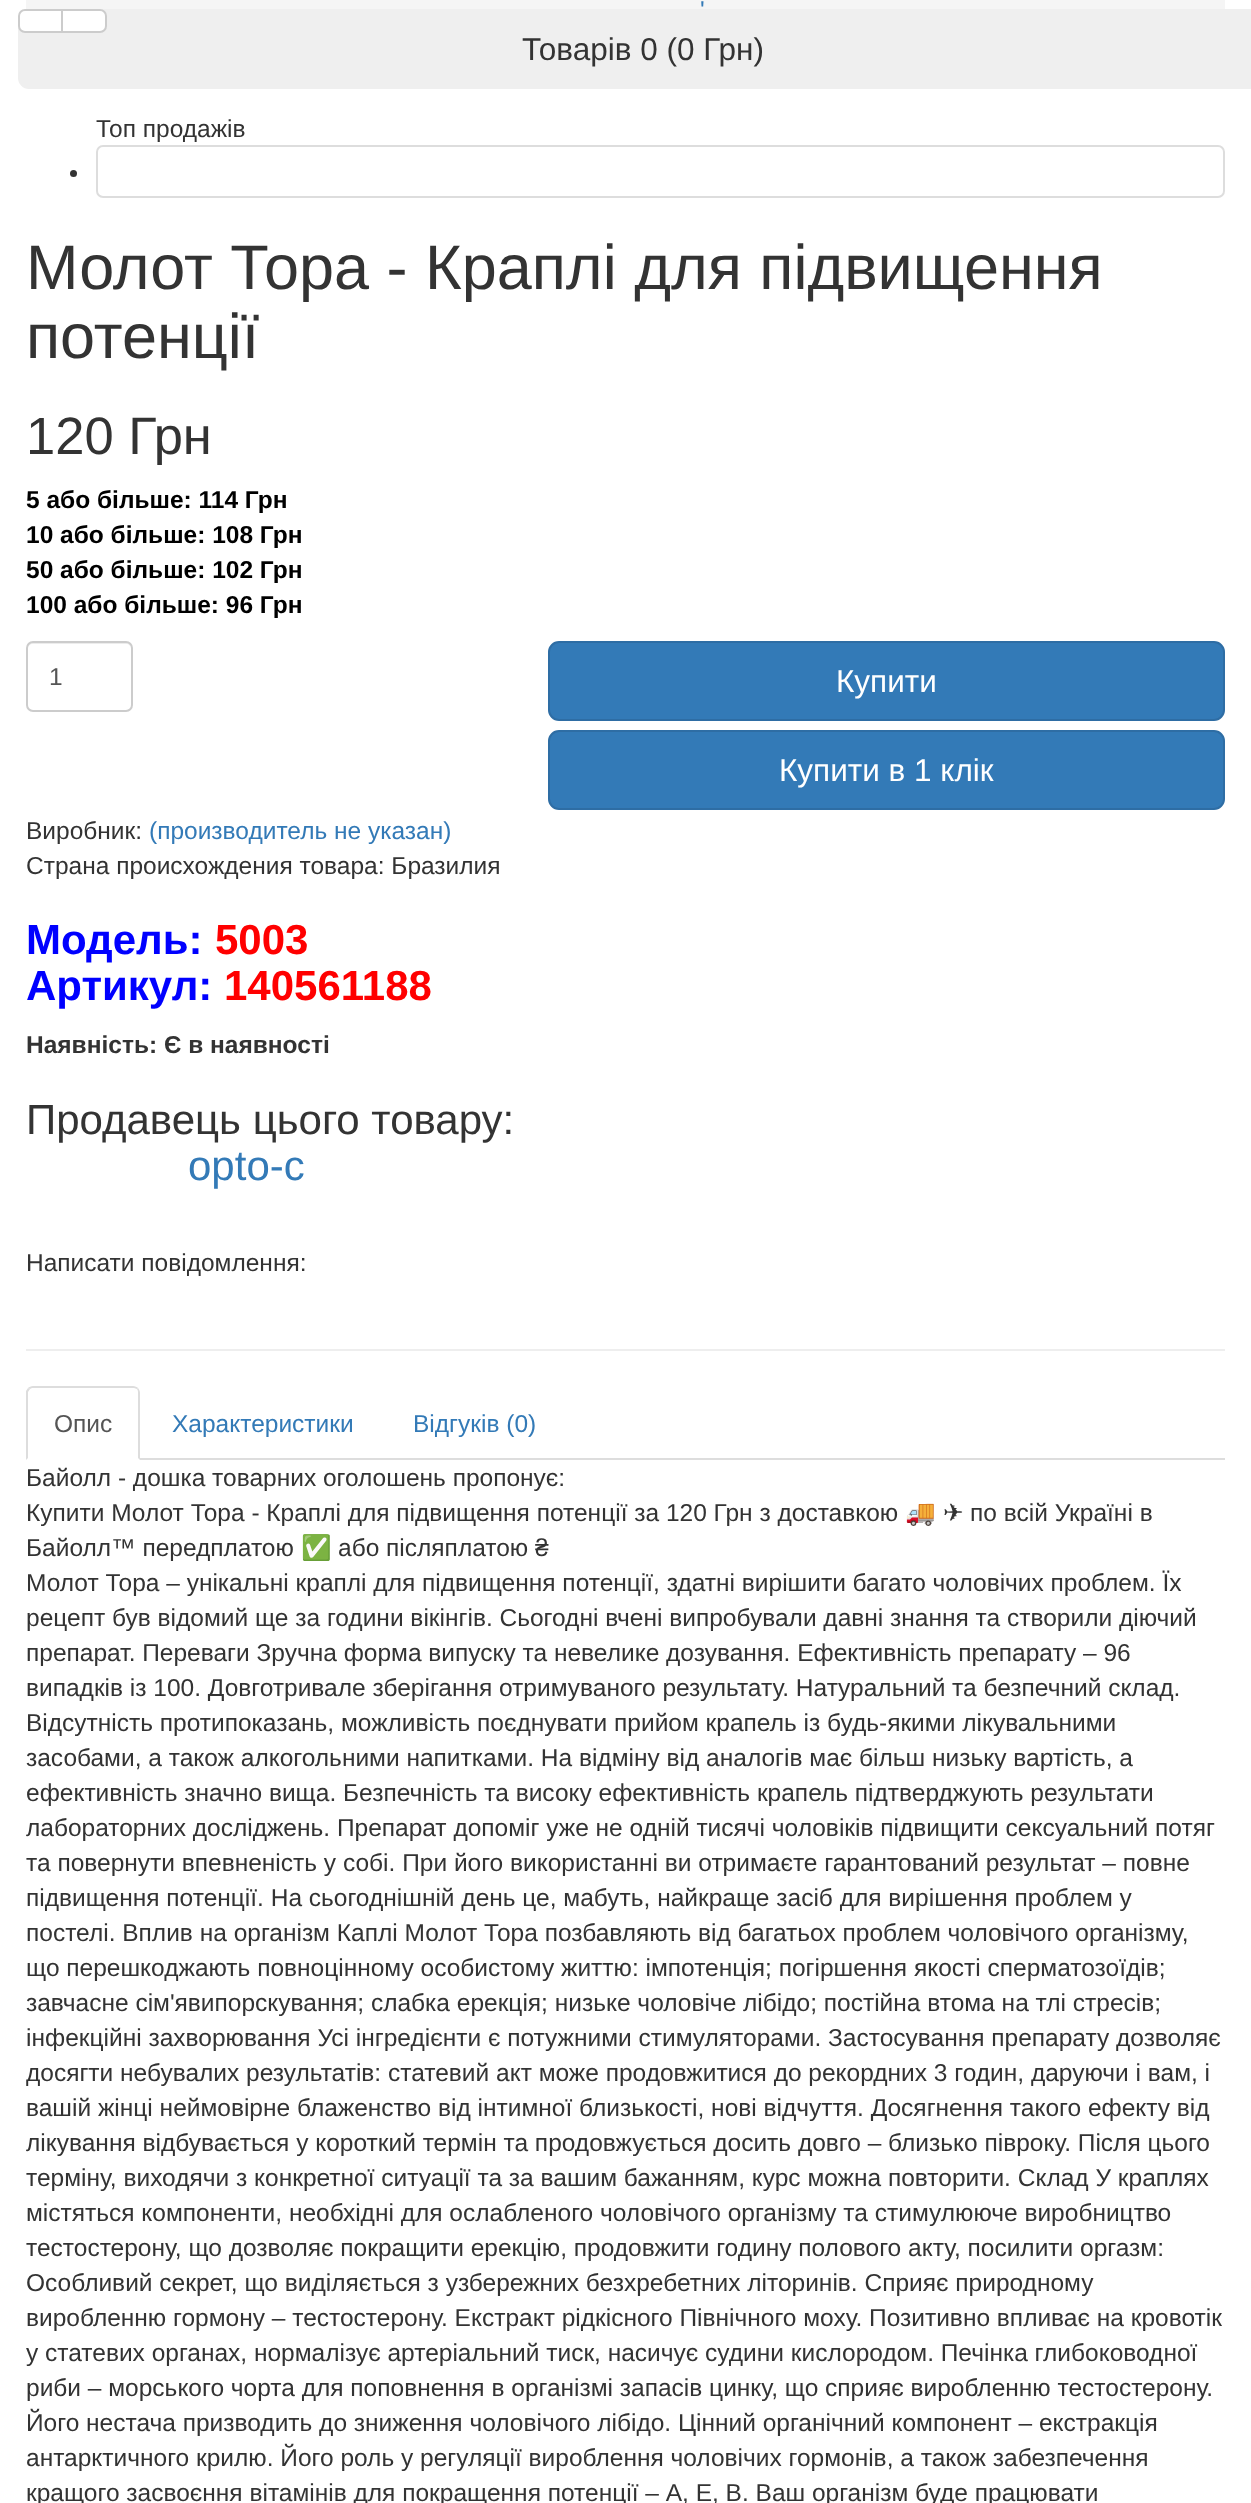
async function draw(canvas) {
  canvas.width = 1251;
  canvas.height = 2503;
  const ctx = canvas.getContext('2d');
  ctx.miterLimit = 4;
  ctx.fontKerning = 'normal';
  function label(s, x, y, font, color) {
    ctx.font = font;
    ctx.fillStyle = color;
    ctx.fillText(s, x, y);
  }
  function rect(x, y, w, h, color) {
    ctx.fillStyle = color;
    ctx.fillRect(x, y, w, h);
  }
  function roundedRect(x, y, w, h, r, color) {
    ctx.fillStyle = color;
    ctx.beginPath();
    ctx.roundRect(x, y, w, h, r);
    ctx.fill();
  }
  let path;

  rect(0, 0, 1251, 2503, '#fff');
  rect(26, 0, 1199, 9, '#f5f5f5');
  label('\'', 700, 18, '24.5px Liberation Sans', '#337ab7');
  label('Топ продажів', 96, 137, '24.5px Liberation Sans', '#333');
  ctx.beginPath();
  ctx.arc(73.5, 173.5, 3.5, 0, 2 * Math.PI);
  ctx.fill();
  ctx.beginPath();
  ctx.roundRect(97, 146, 1127, 51, 6);
  ctx.strokeStyle = '#ddd';
  ctx.lineWidth = 2;
  ctx.stroke();
  label('Молот Тора - Краплі для підвищення', 26, 289, '63px Liberation Sans', '#333');
  label('потенції', 26, 358, '63px Liberation Sans', '#333');
  label('120 Грн', 26, 454, '52.5px Liberation Sans', '#333');
  label('5 або більше: 114 Грн', 26, 508, 'bold 24.5px Liberation Sans', '#000');
  label('10 або більше: 108 Грн', 26, 543, 'bold 24.5px Liberation Sans', '#000');
  label('50 або більше: 102 Грн', 26, 578, 'bold 24.5px Liberation Sans', '#000');
  label('100 або більше: 96 Грн', 26, 613, 'bold 24.5px Liberation Sans', '#000');
  roundedRect(18, 9, 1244, 80, 11, '#efefef');
  ctx.fillStyle = '#fff';
  ctx.beginPath();
  ctx.roundRect(19, 10, 43, 22, [6, 0, 0, 6]);
  ctx.fill();
  ctx.strokeStyle = '#ccc';
  ctx.stroke();
  ctx.beginPath();
  ctx.roundRect(62, 10, 44, 22, [0, 6, 6, 0]);
  ctx.fill();
  ctx.stroke();
  ctx.fillStyle = '#ececec';
  path = new Path2D('M33 644H126C129 644 131 646 131 649C131 638 119 642 110 642H48C40 642 28 638 28 649C28 646 30 644 33 644Z');
  ctx.fill(path);
  ctx.beginPath();
  ctx.roundRect(27, 642, 105, 69, 6);
  ctx.stroke();
  label('1', 49, 685, '24.5px Liberation Sans', '#555');
  ctx.fillStyle = '#337ab7';
  ctx.beginPath();
  ctx.roundRect(549, 642, 675, 78, 10);
  ctx.fill();
  ctx.strokeStyle = '#2e6da4';
  ctx.stroke();
  label('Купити', 836, 692, '31.5px Liberation Sans', '#fff');
  ctx.fillStyle = '#337ab7';
  ctx.beginPath();
  ctx.roundRect(549, 731, 675, 78, 10);
  ctx.fill();
  ctx.stroke();
  label('Купити в 1 клік', 779, 781, '31.5px Liberation Sans', '#fff');
  label('Виробник:', 26, 839, '24.5px Liberation Sans', '#333');
  label('(производитель не указан)', 149, 839, '24.5px Liberation Sans', '#337ab7');
  label('Страна происхождения товара: Бразилия', 26, 874, '24.5px Liberation Sans', '#333');
  label('Модель:', 26, 954, 'bold 42px Liberation Sans', '#00f');
  label('5003', 215, 954, 'bold 42px Liberation Sans', '#f00');
  label('Артикул:', 26, 1000, 'bold 42px Liberation Sans', '#00f');
  label('140561188', 224, 1000, 'bold 42px Liberation Sans', '#f00');
  label('Наявність: Є в наявності', 26, 1053, 'bold 24.5px Liberation Sans', '#333');
  label('Продавець цього товару:', 26, 1134, '42px Liberation Sans', '#333');
  label('opto-c', 188, 1180, '42px Liberation Sans', '#337ab7');
  label('Написати повідомлення:', 26, 1271, '24.5px Liberation Sans', '#333');
  rect(26, 1349, 1199, 2, '#eee');
  rect(140, 1458, 1085, 2, '#ddd');
  path = new Path2D('M33 1386C31 1386 29 1387 28 1388L30 1389L32 1388H134L137 1389L138 1388C137 1387 135 1386 133 1386Z');
  ctx.fill(path);
  path = new Path2D('M140 1460V1393C140 1391 139 1389 138 1388L137 1389C138 1390 138 1392 138 1393V1458Z');
  ctx.fill(path);
  path = new Path2D('M26 1460V1391L28 1388L30 1389L28 1392V1458Z');
  ctx.fill(path);
  label('Опис', 54, 1432, '24.5px Liberation Sans', '#555');
  label('Характеристики', 172, 1432, '24.5px Liberation Sans', '#337ab7');
  label('Відгуків (0)', 413, 1432, '24.5px Liberation Sans', '#337ab7');
  label('Байолл - дошка товарних оголошень пропонує:', 26, 1486, '24.5px Liberation Sans', '#333');
  label('Купити Молот Тора - Краплі для підвищення потенції за 120 Грн з доставкою', 26, 1521, '24.5px Liberation Sans', '#333');
  label('🚚', 905, 1521, '24.5px Noto Color Emoji', '#333');
  label('✈', 943, 1521, '24.5px DejaVu Sans', '#333');
  label('по всій Україні в', 970, 1521, '24.5px Liberation Sans', '#333');
  label('Байолл™ передплатою', 26, 1556, '24.5px Liberation Sans', '#333');
  label('✅', 301, 1556, '24.5px Noto Color Emoji', '#333');
  label('або післяплатою ₴', 338, 1556, '24.5px Liberation Sans', '#333');
  label('Молот Тора – унікальні краплі для підвищення потенції, здатні вирішити багато чоловічих проблем. Їх', 26, 1591, '24.5px Liberation Sans', '#333');
  label('рецепт був відомий ще за години вікінгів. Сьогодні вчені випробували давні знання та створили діючий', 26, 1626, '24.5px Liberation Sans', '#333');
  label('препарат. Переваги Зручна форма випуску та невелике дозування. Ефективність препарату – 96', 26, 1661, '24.5px Liberation Sans', '#333');
  label('випадків із 100. Довготривале зберігання отримуваного результату. Натуральний та безпечний склад.', 26, 1696, '24.5px Liberation Sans', '#333');
  label('Відсутність протипоказань, можливість поєднувати прийом крапель із будь-якими лікувальними', 26, 1731, '24.5px Liberation Sans', '#333');
  label('засобами, а також алкогольними напитками. На відміну від аналогів має більш низьку вартість, а', 26, 1766, '24.5px Liberation Sans', '#333');
  label('ефективність значно вища. Безпечність та високу ефективність крапель підтверджують результати', 26, 1801, '24.5px Liberation Sans', '#333');
  label('лабораторних досліджень. Препарат допоміг уже не одній тисячі чоловіків підвищити сексуальний потяг', 26, 1836, '24.5px Liberation Sans', '#333');
  label('та повернути впевненість у собі. При його використанні ви отримаєте гарантований результат – повне', 26, 1871, '24.5px Liberation Sans', '#333');
  label('підвищення потенції. На сьогоднішній день це, мабуть, найкраще засіб для вирішення проблем у', 26, 1906, '24.5px Liberation Sans', '#333');
  label('постелі. Вплив на організм Каплі Молот Тора позбавляють від багатьох проблем чоловічого організму,', 26, 1941, '24.5px Liberation Sans', '#333');
  label('що перешкоджають повноцінному особистому життю: імпотенція; погіршення якості сперматозоїдів;', 26, 1976, '24.5px Liberation Sans', '#333');
  label('завчасне сім\'явипорскування; слабка ерекція; низьке чоловіче лібідо; постійна втома на тлі стресів;', 26, 2011, '24.5px Liberation Sans', '#333');
  label('інфекційні захворювання Усі інгредієнти є потужними стимуляторами. Застосування препарату дозволяє', 26, 2046, '24.5px Liberation Sans', '#333');
  label('досягти небувалих результатів: статевий акт може продовжитися до рекордних 3 годин, даруючи і вам, і', 26, 2081, '24.5px Liberation Sans', '#333');
  label('вашій жінці неймовірне блаженство від інтимної близькості, нові відчуття. Досягнення такого ефекту від', 26, 2116, '24.5px Liberation Sans', '#333');
  label('лікування відбувається у короткий термін та продовжується досить довго – близько півроку. Після цього', 26, 2151, '24.5px Liberation Sans', '#333');
  label('терміну, виходячи з конкретної ситуації та за вашим бажанням, курс можна повторити. Склад У краплях', 26, 2186, '24.5px Liberation Sans', '#333');
  label('містяться компоненти, необхідні для ослабленого чоловічого організму та стимулююче виробництво', 26, 2221, '24.5px Liberation Sans', '#333');
  label('тестостерону, що дозволяє покращити ерекцію, продовжити годину полового акту, посилити оргазм:', 26, 2256, '24.5px Liberation Sans', '#333');
  label('Особливий секрет, що виділяється з узбережних безхребетних літоринів. Сприяє природному', 26, 2291, '24.5px Liberation Sans', '#333');
  label('виробленню гормону – тестостерону. Екстракт рідкісного Північного моху. Позитивно впливає на кровотік', 26, 2326, '24.5px Liberation Sans', '#333');
  label('у статевих органах, нормалізує артеріальний тиск, насичує судини кислородом. Печінка глибоководної', 26, 2361, '24.5px Liberation Sans', '#333');
  label('риби – морського чорта для поповнення в організмі запасів цинку, що сприяє виробленню тестостерону.', 26, 2396, '24.5px Liberation Sans', '#333');
  label('Його нестача призводить до зниження чоловічого лібідо. Цінний органічний компонент – екстракція', 26, 2431, '24.5px Liberation Sans', '#333');
  label('антарктичного крилю. Його роль у регуляції вироблення чоловічих гормонів, а також забезпечення', 26, 2466, '24.5px Liberation Sans', '#333');
  label('кращого засвоєння вітамінів для покращення потенції – А, Е, В. Ваш організм буде працювати', 26, 2501, '24.5px Liberation Sans', '#333');
  label('Товарів 0 (0 Грн)', 522, 60, '31.5px Liberation Sans', '#333');
}

draw(document.querySelector('canvas'));
